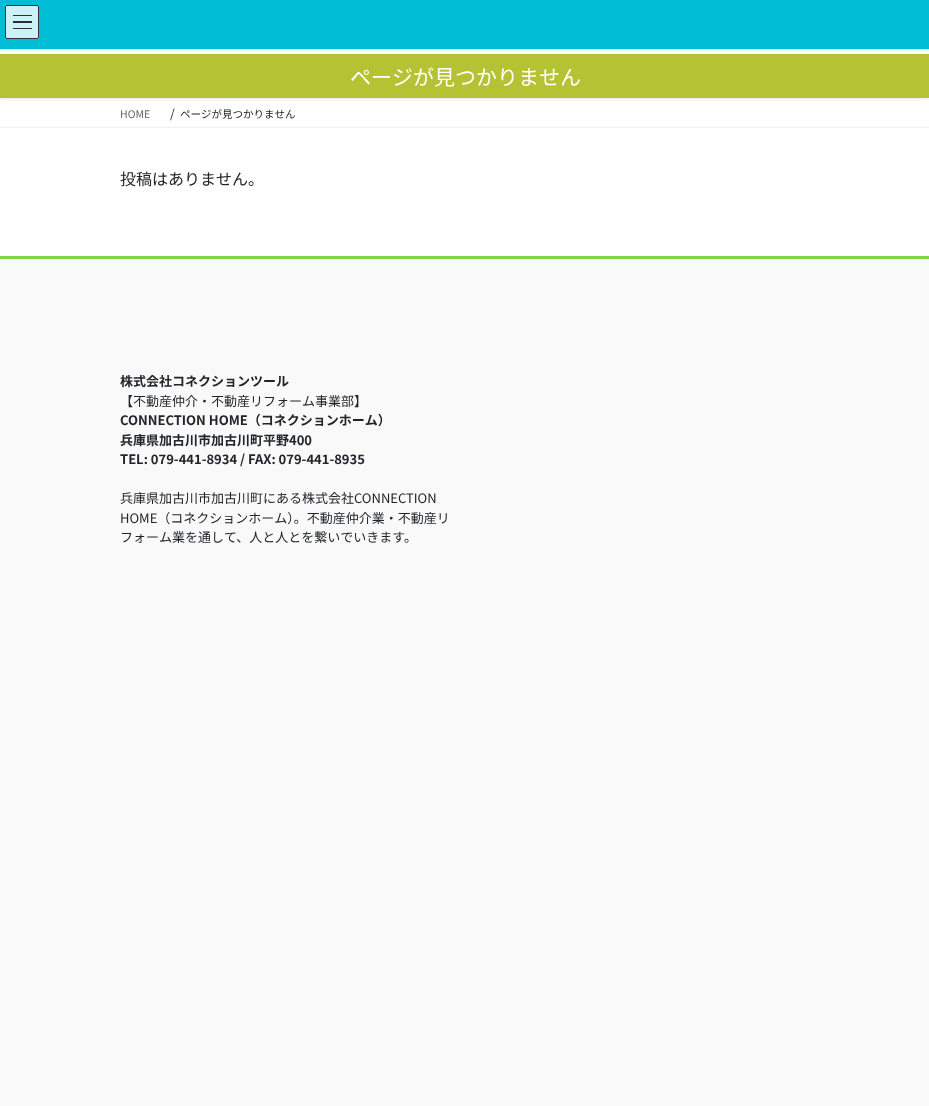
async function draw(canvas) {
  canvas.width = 929;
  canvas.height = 1106;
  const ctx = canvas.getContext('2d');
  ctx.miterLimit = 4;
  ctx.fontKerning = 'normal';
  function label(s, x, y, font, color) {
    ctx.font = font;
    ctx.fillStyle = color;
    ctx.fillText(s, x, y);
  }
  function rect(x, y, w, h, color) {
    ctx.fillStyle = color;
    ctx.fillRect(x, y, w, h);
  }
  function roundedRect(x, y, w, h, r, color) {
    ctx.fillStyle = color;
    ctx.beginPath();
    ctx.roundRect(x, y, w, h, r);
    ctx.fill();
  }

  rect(0, 0, 929, 1106, '#fff');
  ctx.fillStyle = '#0000001a';
  ctx.filter = 'blur(1.5px)';
  ctx.beginPath();
  ctx.rect(0, 55, 929, 44);
  ctx.fill();
  ctx.filter = 'none';
  rect(0, 54, 929, 44, '#b4c233');
  ctx.fillStyle = '#0000001a';
  ctx.filter = 'blur(1.5px)';
  ctx.beginPath();
  ctx.rect(0, 1, 929, 49);
  ctx.fill();
  ctx.filter = 'none';
  rect(0, 0, 929, 49, '#00bcd4');
  roundedRect(5, 5, 34, 34, 2, '#ccf2f6');
  rect(13, 15, 19, 1, '#293031');
  rect(13, 21, 19, 2, '#293031');
  rect(13, 28, 19, 1, '#293031');
  ctx.beginPath();
  ctx.roundRect(5.5, 5.5, 33, 33, 1.5);
  ctx.strokeStyle = '#333';
  ctx.stroke();
  label('ページが見つかりません', 350, 85, '21px Noto Sans JP', '#fff');
  rect(0, 127, 929, 1, '#f2f2f2');
  label('HOME', 120, 118, '10.5px Noto Sans JP', '#666');
  label('/', 170, 118, '12px Noto Sans JP', '#212529');
  label('ページが見つかりません', 180, 118, '10.5px Noto Sans JP', '#212529');
  label('投稿はありません。', 120, 185, '16px Noto Sans JP', '#212529');
  rect(0, 259, 929, 847, '#f9f9f9');
  rect(0, 256, 929, 3, '#81d742');
  label('株式会社コネクションツール', 120, 386, 'bold 13px Noto Sans JP', '#212529');
  label('【不動産仲介・不動産リフォーム事業部】', 120, 406, '13px Noto Sans JP', '#212529');
  label('CONNECTION HOME（コネクションホーム）', 120, 425, 'bold 13px Noto Sans JP', '#212529');
  label('兵庫県加古川市加古川町平野400', 120, 445, 'bold 13px Noto Sans JP', '#212529');
  label('TEL: 079-441-8934 / FAX: 079-441-8935', 120, 464, 'bold 13px Noto Sans JP', '#212529');
  label('兵庫県加古川市加古川町にある株式会社CONNECTION', 120, 503, '13px Noto Sans JP', '#212529');
  label('HOME（コネクションホーム）。不動産仲介業・不動産リ', 120, 523, '13px Noto Sans JP', '#212529');
  label('フォーム業を通して、人と人とを繋いでいきます。', 120, 542, '13px Noto Sans JP', '#212529');
}

draw(document.querySelector('canvas'));
